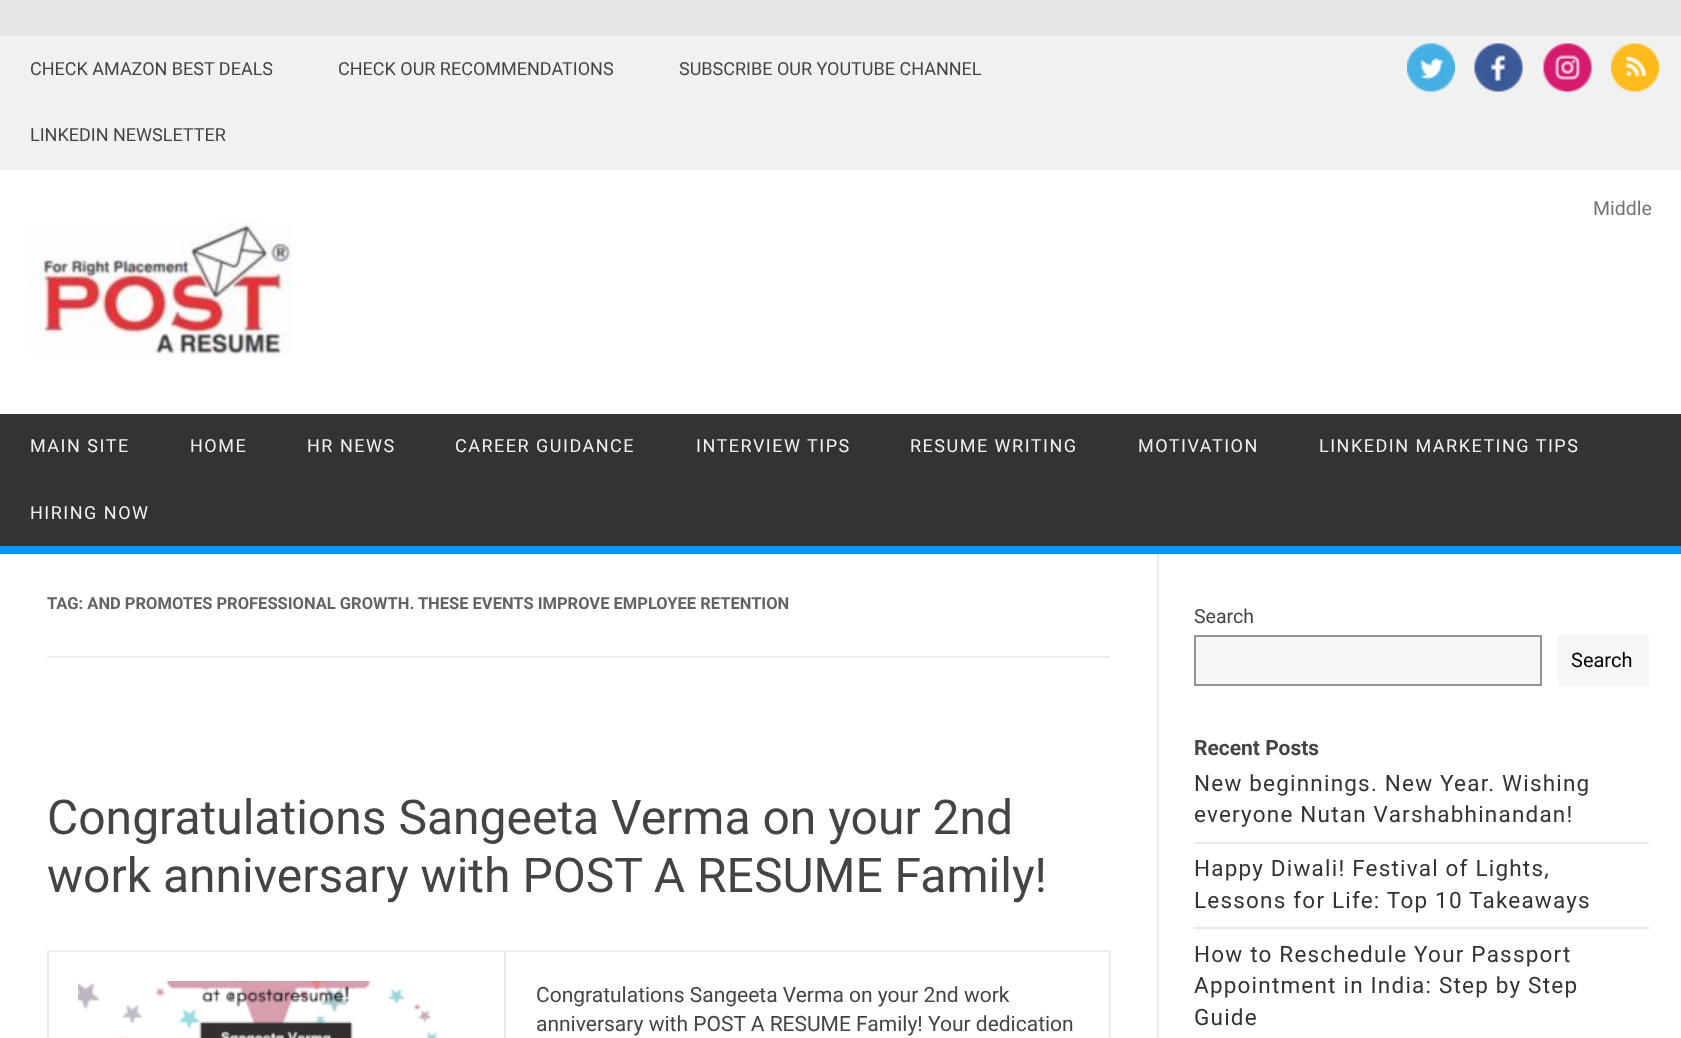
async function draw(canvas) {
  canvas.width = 1681;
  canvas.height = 1038;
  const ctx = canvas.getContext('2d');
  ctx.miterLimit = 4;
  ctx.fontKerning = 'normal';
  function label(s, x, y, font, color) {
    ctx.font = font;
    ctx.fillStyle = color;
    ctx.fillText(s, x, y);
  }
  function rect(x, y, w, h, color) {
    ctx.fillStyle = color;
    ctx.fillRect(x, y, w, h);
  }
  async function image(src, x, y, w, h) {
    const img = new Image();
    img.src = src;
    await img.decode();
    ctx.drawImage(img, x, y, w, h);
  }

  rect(0, 0, 1681, 1038, '#e6e6e6');
  rect(0, 170, 1681, 868, '#fff');
  rect(0, 36, 1681, 134, '#f1f1f1');
  label('CHECK AMAZON BEST DEALS', 30, 75, '18px Roboto', '#444');
  label('CHECK OUR RECOMMENDATIONS', 338, 75, '18px Roboto', '#444');
  label('SUBSCRIBE OUR YOUTUBE CHANNEL', 679, 75, '18px Roboto', '#444');
  label('LINKEDIN NEWSLETTER', 30, 141, '18px Roboto', '#444');
  await image('assets/img1.png', 1407, 43, 48, 49);
  await image('assets/img2.png', 1474, 43, 49, 49);
  await image('assets/img3.png', 1543, 43, 49, 49);
  await image('assets/img4.png', 1611, 43, 48, 49);
  label('Middle', 1593, 215, '19.5px Roboto', '#757575');
  await image('assets/img5.png', 26, 222, 267, 133);
  rect(0, 414, 1681, 132, '#333');
  rect(0, 546, 1681, 8, '#09f');
  ctx.letterSpacing = '1.5px';
  label('MAIN SITE', 30, 452, '18px Roboto', '#f1f1f1');
  label('HOME', 190, 452, '18px Roboto', '#f1f1f1');
  label('HR NEWS', 307, 452, '18px Roboto', '#f1f1f1');
  label('CAREER GUIDANCE', 455, 452, '18px Roboto', '#f1f1f1');
  label('INTERVIEW TIPS', 696, 452, '18px Roboto', '#f1f1f1');
  label('RESUME WRITING', 910, 452, '18px Roboto', '#f1f1f1');
  label('MOTIVATION', 1138, 452, '18px Roboto', '#f1f1f1');
  label('LINKEDIN MARKETING TIPS', 1319, 452, '18px Roboto', '#f1f1f1');
  label('HIRING NOW', 30, 519, '18px Roboto', '#f1f1f1');
  rect(1157, 554, 2, 484, '#e9e9e9');
  rect(47, 656, 1063, 2, '#ededed');
  ctx.letterSpacing = '0px';
  label('TAG: AND PROMOTES PROFESSIONAL GROWTH. THESE EVENTS IMPROVE EMPLOYEE RETENTION', 47, 609, 'bold 16.5px Roboto', '#636363');
  label('Congratulations Sangeeta Verma on your 2nd', 47, 834, '48px Roboto', '#444');
  label('work anniversary with POST A RESUME Family!', 47, 892, '48px Roboto', '#444');
  rect(47, 950, 1063, 2, '#ededed');
  rect(1109, 950, 2, 88, '#ededed');
  rect(47, 950, 2, 88, '#ededed');
  rect(504, 951, 2, 87, '#ededed');
  await image('assets/img6.png', 78, 981, 359, 57);
  label('Congratulations Sangeeta Verma on your 2nd work', 536, 1002, '21px Roboto', '#444');
  label('anniversary with POST A RESUME Family! Your dedication', 536, 1031, '21px Roboto', '#444');
  label('Search', 1194, 623, '19.5px Roboto', '#444');
  ctx.fillStyle = '#f7f7f7';
  ctx.beginPath();
  ctx.rect(1195, 636, 346, 49);
  ctx.fill();
  ctx.strokeStyle = '#949494';
  ctx.lineWidth = 2;
  ctx.stroke();
  rect(1557, 635, 92, 51, '#f7f7f7');
  label('Search', 1571, 667, '20px Roboto', '#000');
  label('Recent Posts', 1194, 755, 'bold 21px Roboto', '#444');
  rect(1194, 842, 455, 2, '#e9e9e9');
  ctx.letterSpacing = '1.2px';
  label('New beginnings. New Year. Wishing', 1194, 791, '22.5px Roboto', '#333');
  label('everyone Nutan Varshabhinandan!', 1194, 822, '22.5px Roboto', '#333');
  rect(1194, 927, 455, 2, '#e9e9e9');
  label('Happy Diwali! Festival of Lights,', 1194, 876, '22.5px Roboto', '#333');
  label('Lessons for Life: Top 10 Takeaways', 1194, 908, '22.5px Roboto', '#333');
  label('How to Reschedule Your Passport', 1194, 962, '22.5px Roboto', '#333');
  label('Appointment in India: Step by Step', 1194, 993, '22.5px Roboto', '#333');
  label('Guide', 1194, 1025, '22.5px Roboto', '#333');
}

draw(document.querySelector('canvas'));
